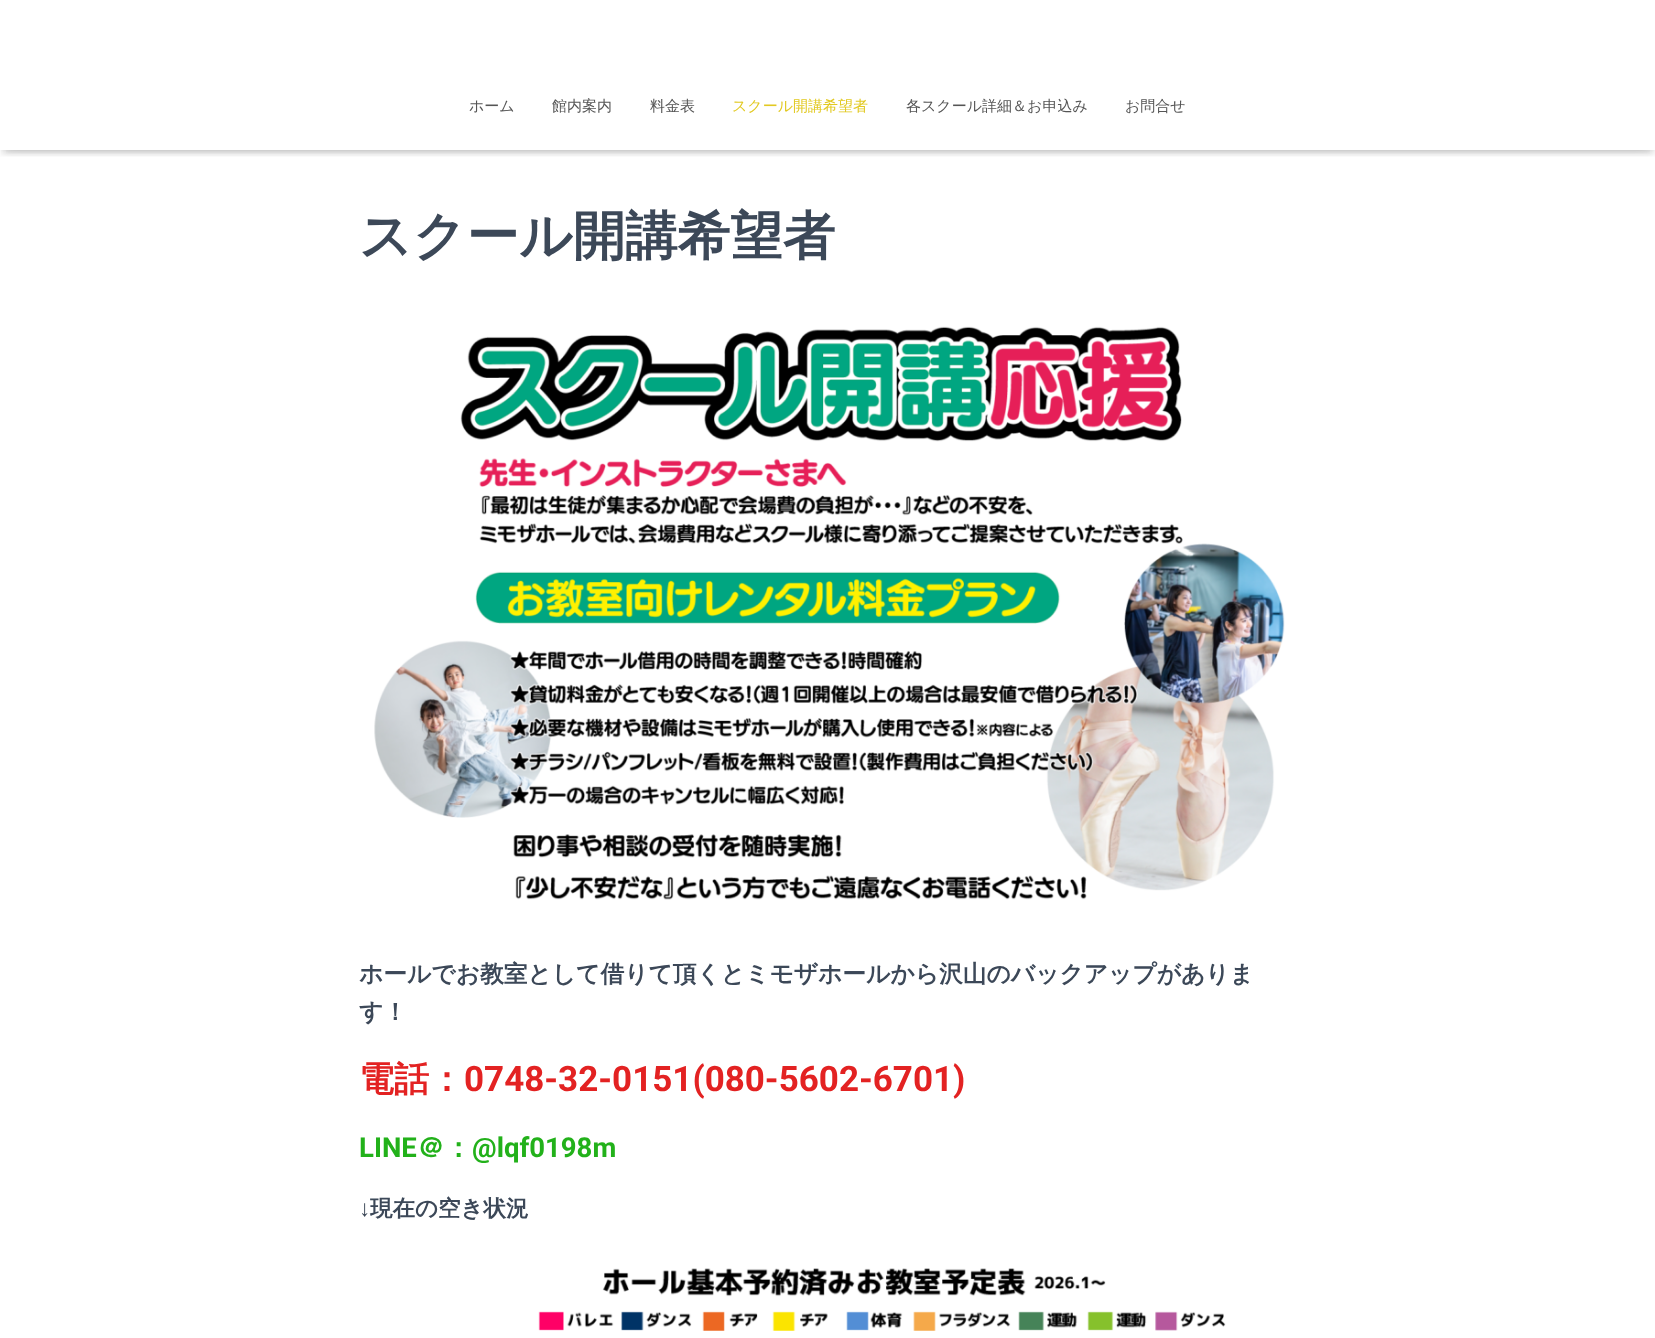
async function draw(canvas) {
  canvas.width = 1655;
  canvas.height = 1338;
  const ctx = canvas.getContext('2d');
  ctx.miterLimit = 4;
  ctx.fontKerning = 'normal';
  function label(s, x, y, font, color) {
    ctx.font = font;
    ctx.fillStyle = color;
    ctx.fillText(s, x, y);
  }
  function rect(x, y, w, h, color) {
    ctx.fillStyle = color;
    ctx.fillRect(x, y, w, h);
  }
  async function image(src, x, y, w, h) {
    const img = new Image();
    img.src = src;
    await img.decode();
    ctx.drawImage(img, x, y, w, h);
  }

  rect(0, 0, 1655, 1338, '#fff');
  ctx.save();
  ctx.beginPath();
  ctx.rect(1, 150, 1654, 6);
  ctx.clip();
  ctx.fillStyle = '#0000001a';
  ctx.filter = 'blur(3px)';
  ctx.beginPath();
  ctx.rect(3, 8, 1650, 145);
  ctx.fill();
  ctx.filter = 'none';
  ctx.restore();
  ctx.save();
  ctx.beginPath();
  ctx.rect(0, 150, 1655, 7);
  ctx.clip();
  ctx.fillStyle = '#0000001f';
  ctx.filter = 'blur(6px)';
  ctx.beginPath();
  ctx.rect(0, 1, 1655, 150);
  ctx.fill();
  ctx.filter = 'none';
  ctx.restore();
  ctx.save();
  ctx.beginPath();
  ctx.rect(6, 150, 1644, 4);
  ctx.clip();
  ctx.fillStyle = '#0000006b';
  ctx.filter = 'blur(6px)';
  ctx.beginPath();
  ctx.rect(8, 9, 1640, 135);
  ctx.fill();
  ctx.filter = 'none';
  ctx.restore();
  label('ホーム', 469, 111, '500 15px WenQuanYi Zen Hei', '#555');
  label('館内案内', 552, 111, '500 15px WenQuanYi Zen Hei', '#555');
  label('料金表', 650, 111, '500 15px WenQuanYi Zen Hei', '#555');
  label('スクール開講希望者', 732, 111, '500 15px WenQuanYi Zen Hei', '#e2c922');
  label('各スクール詳細＆お申込み', 906, 111, '500 15px WenQuanYi Zen Hei', '#555');
  label('お問合せ', 1125, 111, '500 15px WenQuanYi Zen Hei', '#555');
  label('スクール開講希望者', 359, 254, 'bold 52.5px WenQuanYi Zen Hei', '#3c4858');
  await image('assets/img1.png', 374, 326, 911, 574);
  label('ホールでお教室として借りて頂くとミモザホールから沢山のバックアップがありま', 359, 982, 'bold 23.75px WenQuanYi Zen Hei', '#3c4858');
  label('す！', 359, 1020, 'bold 23.75px WenQuanYi Zen Hei', '#3c4858');
  label('電話：', 359, 1091, 'bold 35px WenQuanYi Zen Hei', '#e32222');
  label('0748-32-0151(080-5602-6701)', 464, 1091, 'bold 35px Roboto', '#e32222');
  label('LINE', 359, 1157, 'bold 27.5px Roboto', '#22b11a');
  label('＠：', 417, 1157, 'bold 27.5px WenQuanYi Zen Hei', '#22b11a');
  label('@lqf0198m', 472, 1157, 'bold 27.5px Roboto', '#22b11a');
  label('↓', 359, 1216, 'bold 22.5px Liberation Sans', '#3c4858');
  label('現在の空き状況', 370, 1216, 'bold 22.5px WenQuanYi Zen Hei', '#3c4858');
  await image('assets/img2.png', 538, 1268, 688, 63);
}

draw(document.querySelector('canvas'));
